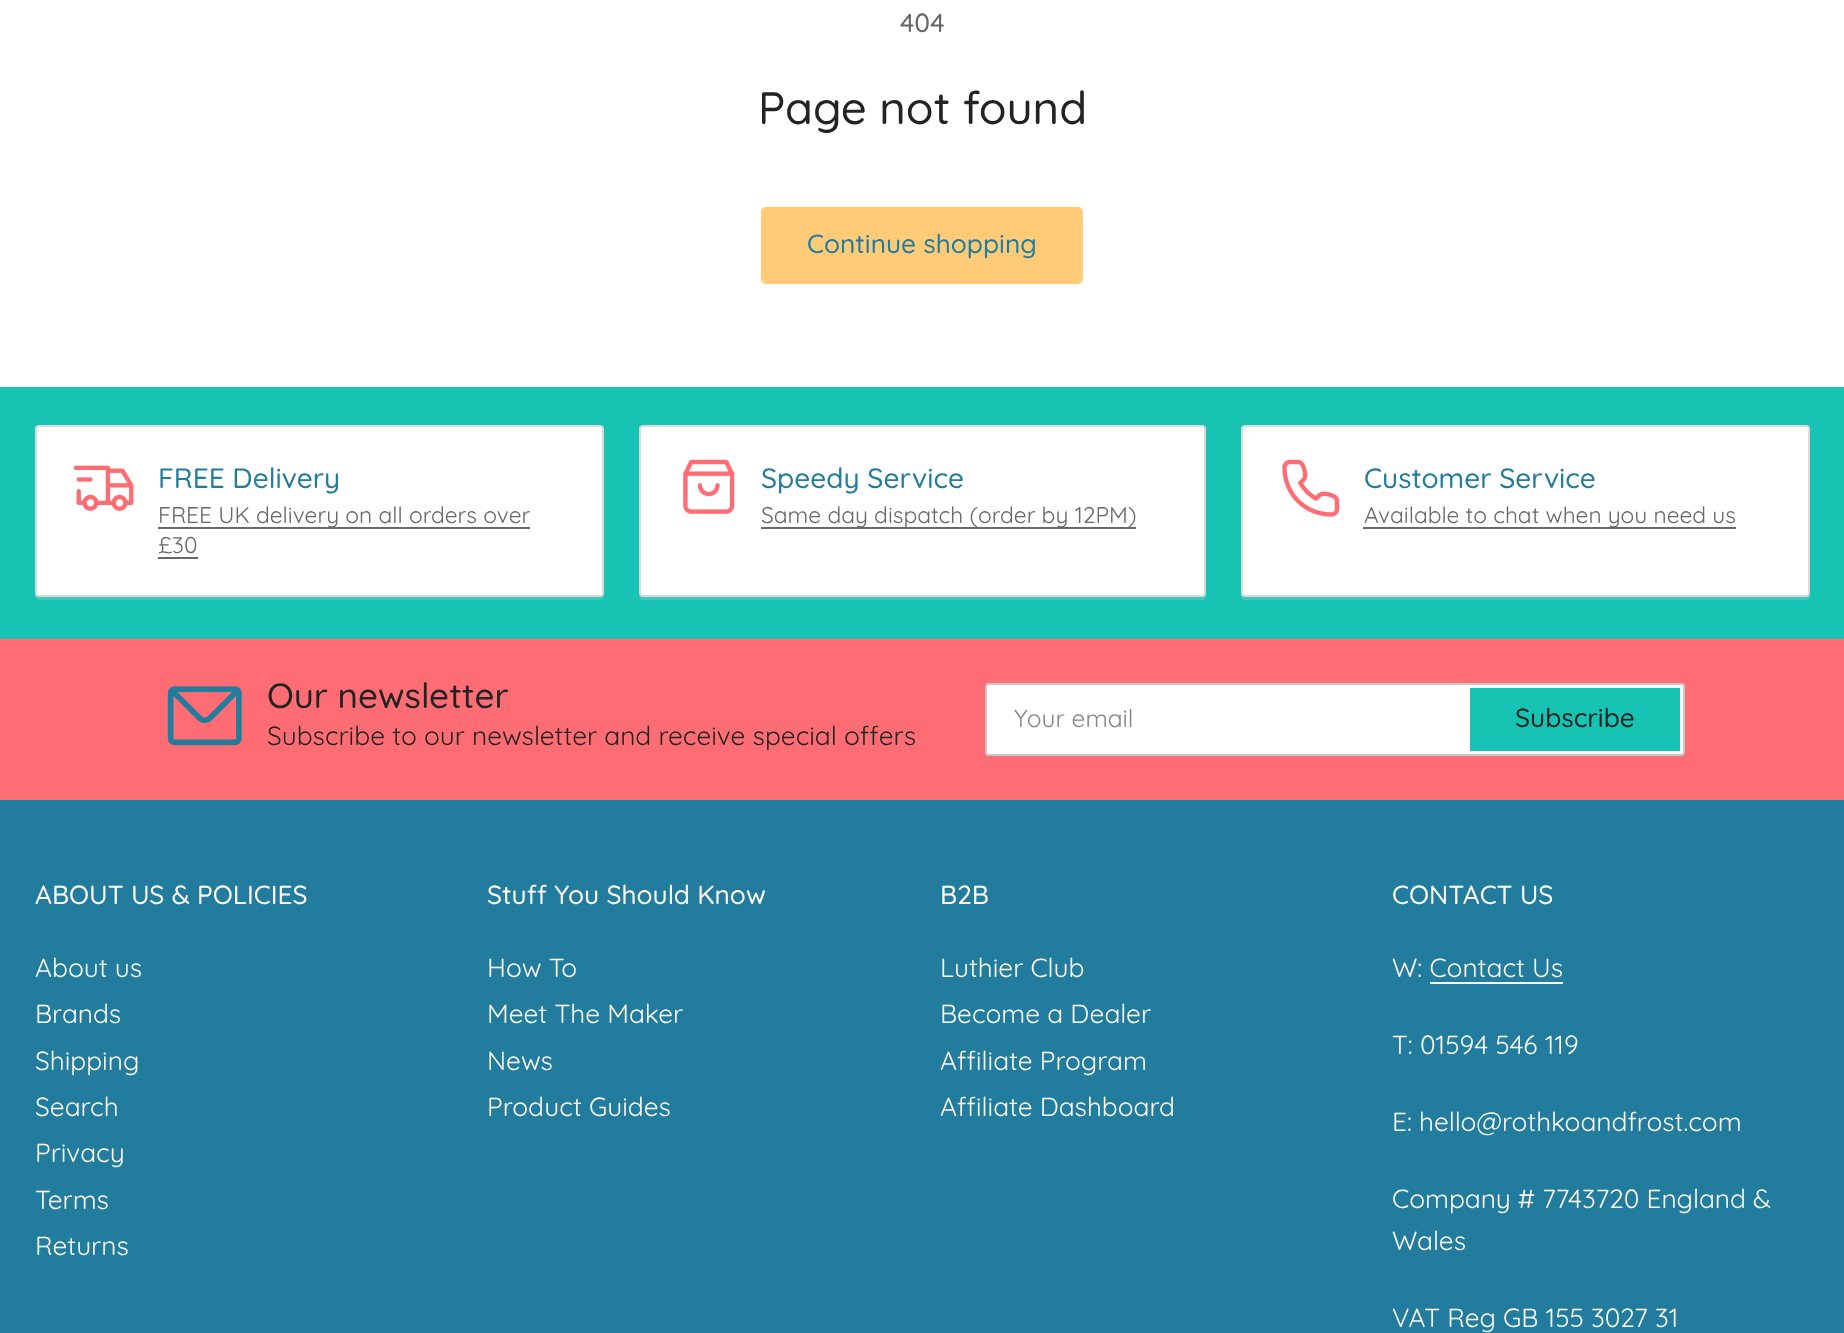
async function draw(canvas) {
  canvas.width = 1844;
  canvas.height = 1333;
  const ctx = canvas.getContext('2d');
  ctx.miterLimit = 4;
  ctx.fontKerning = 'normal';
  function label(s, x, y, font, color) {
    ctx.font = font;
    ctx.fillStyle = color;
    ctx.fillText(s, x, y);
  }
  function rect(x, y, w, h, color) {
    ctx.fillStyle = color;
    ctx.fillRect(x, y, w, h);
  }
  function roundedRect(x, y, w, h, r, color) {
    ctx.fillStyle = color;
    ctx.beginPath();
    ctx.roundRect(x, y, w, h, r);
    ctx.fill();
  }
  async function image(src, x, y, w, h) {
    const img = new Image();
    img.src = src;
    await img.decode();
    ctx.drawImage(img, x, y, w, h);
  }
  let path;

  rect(0, 0, 1844, 1333, '#fff');
  label('404', 900, 32, '500 26.25px Quicksand', '#676767');
  label('Page not found', 758, 124, '500 45.5px Quicksand', '#232323');
  ctx.beginPath();
  ctx.roundRect(762, 208, 320, 75, 4);
  ctx.strokeStyle = '#ffcb77';
  ctx.lineWidth = 2;
  ctx.stroke();
  roundedRect(763, 208, 319, 74, 4, '#ffcb77');
  label('Continue shopping', 807, 253, '500 26.25px Quicksand', '#227c9d');
  rect(0, 387, 1844, 252, '#17c3b2');
  ctx.fillStyle = '#3ec8ba';
  path = new Path2D('M35 593V596C35 598 37 600 39 600H600C602 600 604 598 604 596V432V593C604 595 602 597 600 597H38C37 597 35 595 35 593Z');
  ctx.fill(path);
  ctx.fillStyle = '#fff';
  ctx.beginPath();
  ctx.roundRect(36, 426, 567, 170, 3);
  ctx.fill();
  ctx.strokeStyle = '#dadada';
  ctx.stroke();
  await image('assets/img1.png', 73, 465, 61, 46);
  label('FREE Delivery', 158, 488, '500 28px Quicksand', '#227c9d');
  rect(158, 527, 372, 2, '#676767');
  label('FREE UK delivery on all orders over', 158, 523, '22.75px Quicksand', '#676767');
  label('£30', 158, 553, '22.75px Quicksand', '#676767');
  rect(158, 557, 40, 2, '#676767');
  ctx.fillStyle = '#3ec8ba';
  path = new Path2D('M639 595V596C639 598 641 600 643 600H1202C1204 600 1206 598 1206 596V432V593C1206 595 1204 597 1202 597H642C641 597 640 596 639 595Z');
  ctx.fill(path);
  ctx.fillStyle = '#fff';
  ctx.beginPath();
  ctx.roundRect(640, 426, 565, 170, 3);
  ctx.fill();
  ctx.stroke();
  await image('assets/img2.png', 683, 459, 52, 55);
  label('Speedy Service', 761, 488, '500 28px Quicksand', '#227c9d');
  rect(761, 527, 375, 2, '#676767');
  label('Same day dispatch (order by 12PM)', 761, 523, '22.75px Quicksand', '#676767');
  ctx.fillStyle = '#3ec8ba';
  path = new Path2D('M1241 595V596C1241 598 1243 600 1245 600H1806C1808 600 1810 598 1810 596V433V431V593C1810 595 1808 597 1806 597H1244C1243 597 1242 596 1241 595Z');
  ctx.fill(path);
  ctx.fillStyle = '#fff';
  ctx.beginPath();
  ctx.roundRect(1242, 426, 567, 170, 3);
  ctx.fill();
  ctx.stroke();
  await image('assets/img3.png', 1282, 459, 58, 58);
  label('Customer Service', 1364, 488, '500 28px Quicksand', '#227c9d');
  rect(1363, 527, 373, 2, '#676767');
  label('Available to chat when you need us', 1364, 523, '22.75px Quicksand', '#676767');
  rect(0, 639, 1844, 161, '#fe6d73');
  await image('assets/img4.png', 167, 686, 75, 60);
  label('Our newsletter', 267, 708, '500 35px Quicksand', '#232323');
  label('Subscribe to our newsletter and receive special offers', 267, 745, '26.25px Quicksand', '#232323');
  roundedRect(985, 683, 700, 73, 4, '#fff');
  ctx.beginPath();
  ctx.roundRect(986, 684, 698, 71, 3);
  ctx.strokeStyle = '#23232340';
  ctx.stroke();
  label('Your email', 1014, 727, '24.5px Quicksand', '#858585');
  ctx.strokeStyle = '#17c3b2';
  ctx.strokeRect(1471, 689, 208, 61);
  rect(1472, 690, 206, 59, '#17c3b2');
  label('Subscribe', 1515, 727, '500 26.25px Quicksand', '#232323');
  rect(0, 800, 1844, 533, '#227c9d');
  label('ABOUT US & POLICIES', 35, 904, '500 26.25px Quicksand', '#fef9ef');
  label('About us', 35, 977, '26.25px Quicksand', '#fef9ef');
  label('Brands', 35, 1023, '26.25px Quicksand', '#fef9ef');
  label('Shipping', 35, 1070, '26.25px Quicksand', '#fef9ef');
  label('Search', 35, 1116, '26.25px Quicksand', '#fef9ef');
  label('Privacy', 35, 1162, '26.25px Quicksand', '#fef9ef');
  label('Terms', 35, 1209, '26.25px Quicksand', '#fef9ef');
  label('Returns', 35, 1255, '26.25px Quicksand', '#fef9ef');
  label('Stuff You Should Know', 487, 904, '500 26.25px Quicksand', '#fef9ef');
  label('How To', 487, 977, '26.25px Quicksand', '#fef9ef');
  label('Meet The Maker', 487, 1023, '26.25px Quicksand', '#fef9ef');
  label('News', 487, 1070, '26.25px Quicksand', '#fef9ef');
  label('Product Guides', 487, 1116, '26.25px Quicksand', '#fef9ef');
  label('B2B', 940, 904, '500 26.25px Quicksand', '#fef9ef');
  label('Luthier Club', 940, 977, '26.25px Quicksand', '#fef9ef');
  label('Become a Dealer', 940, 1023, '26.25px Quicksand', '#fef9ef');
  label('Affiliate Program', 940, 1070, '26.25px Quicksand', '#fef9ef');
  label('Affiliate Dashboard', 940, 1116, '26.25px Quicksand', '#fef9ef');
  label('CONTACT US', 1392, 904, '500 26.25px Quicksand', '#fef9ef');
  label('W: Contact Us', 1392, 977, '26.25px Quicksand', '#fef9ef');
  rect(1430, 982, 133, 2, '#fef9ef');
  label('T: 01594 546 119', 1392, 1054, '26.25px Quicksand', '#fef9ef');
  label('E: hello@rothkoandfrost.com', 1392, 1131, '26.25px Quicksand', '#fef9ef');
  label('Company # 7743720 England &', 1392, 1208, '26.25px Quicksand', '#fef9ef');
  label('Wales', 1392, 1250, '26.25px Quicksand', '#fef9ef');
  label('VAT Reg GB 155 3027 31', 1392, 1327, '26.25px Quicksand', '#fef9ef');
}

draw(document.querySelector('canvas'));
